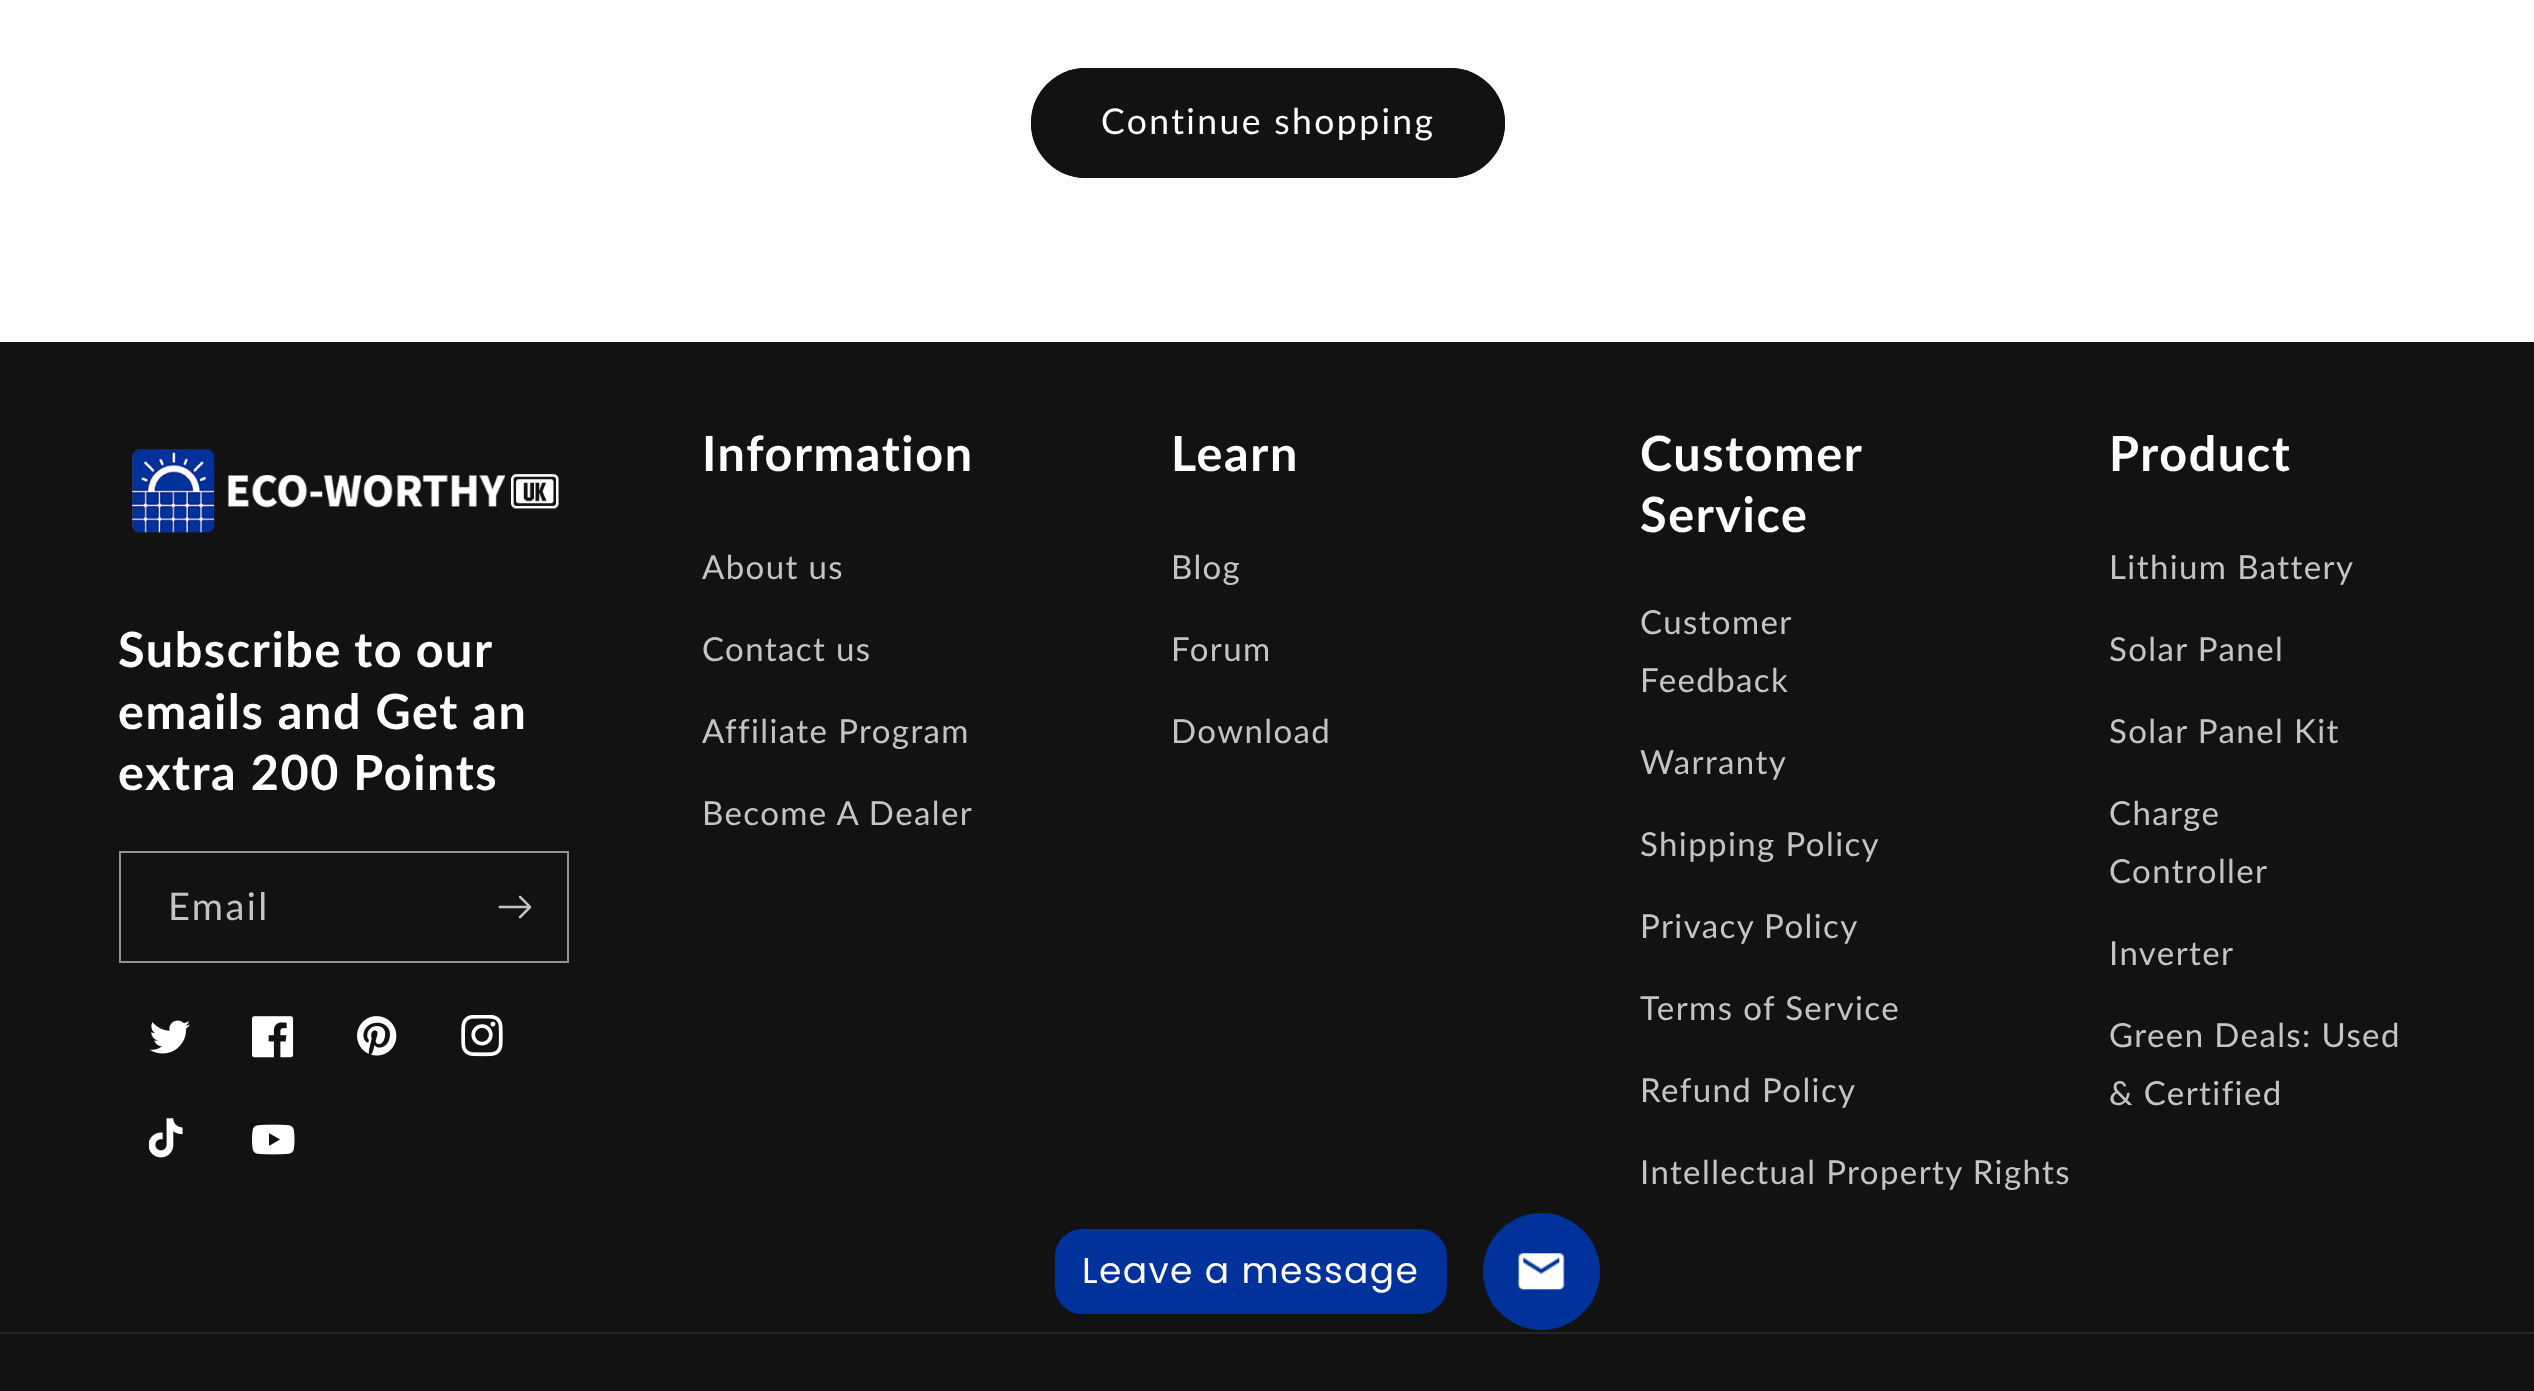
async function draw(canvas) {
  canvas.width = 2534;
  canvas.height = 1391;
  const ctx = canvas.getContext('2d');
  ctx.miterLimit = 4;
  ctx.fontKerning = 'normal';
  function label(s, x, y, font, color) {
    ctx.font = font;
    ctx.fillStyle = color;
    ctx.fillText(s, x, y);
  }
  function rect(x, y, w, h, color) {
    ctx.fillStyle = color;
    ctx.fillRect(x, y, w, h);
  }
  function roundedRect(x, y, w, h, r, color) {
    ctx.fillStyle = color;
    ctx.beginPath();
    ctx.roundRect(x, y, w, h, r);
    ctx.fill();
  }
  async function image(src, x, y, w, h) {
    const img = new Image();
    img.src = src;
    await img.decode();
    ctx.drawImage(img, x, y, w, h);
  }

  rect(0, 0, 2534, 1391, '#fff');
  roundedRect(1031, 68, 474, 110, 55, '#121212');
  ctx.beginPath();
  ctx.roundRect(1032, 69, 472, 108, 54);
  ctx.strokeStyle = '#121212';
  ctx.lineWidth = 2;
  ctx.stroke();
  ctx.letterSpacing = '2.4px';
  label('Continue shopping', 1101, 134, '35.5px Lato', '#fff');
  rect(0, 342, 2534, 1049, '#121212');
  await image('assets/img1.png', 132, 449, 427, 84);
  ctx.letterSpacing = '1.6px';
  ctx.wordSpacing = '-1px';
  label('Subscribe to our', 118, 667, 'bold 48.5px Lato', '#fff');
  ctx.wordSpacing = '0px';
  label('emails and Get an', 118, 729, 'bold 48.5px Lato', '#fff');
  label('extra 200 Points', 118, 790, 'bold 48.5px Lato', '#fff');
  ctx.strokeStyle = '#949494';
  ctx.strokeRect(120, 852, 448, 110);
  ctx.letterSpacing = '2.4px';
  label('Email', 168, 920, '38px Lato', '#c4c4c4');
  await image('assets/img2.png', 498, 895, 33, 24);
  await image('assets/img3.png', 149, 1020, 41, 34);
  await image('assets/img4.png', 252, 1016, 42, 42);
  await image('assets/img5.png', 357, 1016, 40, 40);
  await image('assets/img6.png', 461, 1015, 42, 42);
  await image('assets/img7.png', 149, 1118, 34, 40);
  await image('assets/img8.png', 252, 1124, 43, 31);
  ctx.letterSpacing = '1.6px';
  label('Information', 702, 471, 'bold 48.5px Lato', '#fff');
  ctx.letterSpacing = '1.4px';
  label('About us', 702, 579, '33px Lato', '#c4c4c4');
  label('Contact us', 702, 661, '33px Lato', '#c4c4c4');
  label('Affiliate Program', 702, 743, '33px Lato', '#c4c4c4');
  label('Become A Dealer', 702, 825, '33px Lato', '#c4c4c4');
  ctx.letterSpacing = '1.6px';
  label('Learn', 1171, 471, 'bold 48.5px Lato', '#fff');
  ctx.letterSpacing = '1.4px';
  label('Blog', 1171, 579, '33px Lato', '#c4c4c4');
  label('Forum', 1171, 661, '33px Lato', '#c4c4c4');
  label('Download', 1171, 743, '33px Lato', '#c4c4c4');
  ctx.letterSpacing = '1.6px';
  label('Customer', 1640, 471, 'bold 48.5px Lato', '#fff');
  label('Service', 1640, 532, 'bold 48.5px Lato', '#fff');
  ctx.letterSpacing = '1.4px';
  label('Customer', 1640, 634, '33px Lato', '#c4c4c4');
  label('Feedback', 1640, 692, '33px Lato', '#c4c4c4');
  label('Warranty', 1640, 774, '33px Lato', '#c4c4c4');
  label('Shipping Policy', 1640, 856, '33px Lato', '#c4c4c4');
  label('Privacy Policy', 1640, 938, '33px Lato', '#c4c4c4');
  label('Terms of Service', 1640, 1020, '33px Lato', '#c4c4c4');
  label('Refund Policy', 1640, 1102, '33px Lato', '#c4c4c4');
  label('Intellectual Property Rights', 1640, 1184, '33px Lato', '#c4c4c4');
  ctx.letterSpacing = '1.6px';
  label('Product', 2109, 471, 'bold 48.5px Lato', '#fff');
  ctx.letterSpacing = '1.4px';
  label('Lithium Battery', 2109, 579, '33px Lato', '#c4c4c4');
  label('Solar Panel', 2109, 661, '33px Lato', '#c4c4c4');
  label('Solar Panel Kit', 2109, 743, '33px Lato', '#c4c4c4');
  label('Charge', 2109, 825, '33px Lato', '#c4c4c4');
  label('Controller', 2109, 883, '33px Lato', '#c4c4c4');
  label('Inverter', 2109, 965, '33px Lato', '#c4c4c4');
  label('Green Deals: Used', 2109, 1047, '33px Lato', '#c4c4c4');
  label('& Certified', 2109, 1105, '33px Lato', '#c4c4c4');
  rect(0, 1332, 2534, 2, '#252525');
  ctx.fillStyle = '#01329b';
  ctx.beginPath();
  ctx.arc(1541.5, 1271.5, 58.5, 0, 2 * Math.PI);
  ctx.fill();
  roundedRect(1055, 1229, 392, 85, 27, '#01329b');
  label('Leave a message', 1082, 1283, '36px Poppins', '#fff');
  await image('assets/img9.png', 1518, 1253, 47, 37);
}

draw(document.querySelector('canvas'));
